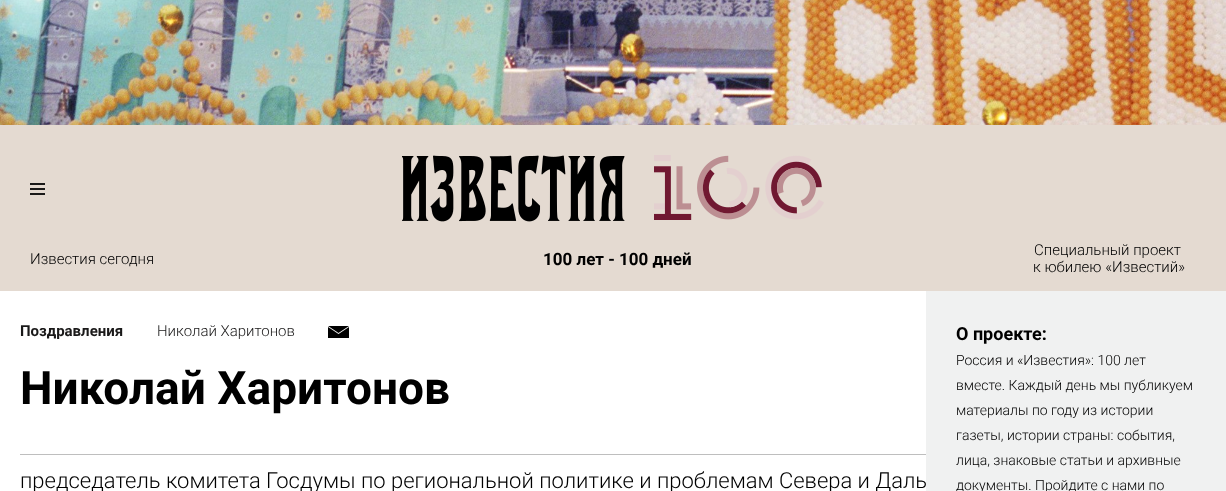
async function draw(canvas) {
  canvas.width = 1226;
  canvas.height = 491;
  const ctx = canvas.getContext('2d');
  ctx.miterLimit = 4;
  ctx.fontKerning = 'normal';
  function label(s, x, y, font, color) {
    ctx.font = font;
    ctx.fillStyle = color;
    ctx.fillText(s, x, y);
  }
  function rect(x, y, w, h, color) {
    ctx.fillStyle = color;
    ctx.fillRect(x, y, w, h);
  }
  async function image(src, x, y, w, h) {
    const img = new Image();
    img.src = src;
    await img.decode();
    ctx.drawImage(img, x, y, w, h);
  }

  rect(0, 0, 1226, 491, '#fff');
  await image('assets/img1.png', 0, 0, 1226, 125);
  rect(0, 125, 1226, 166, '#e4dad1');
  rect(30, 183, 15, 2, '#1a1919');
  rect(30, 188, 15, 2, '#1a1919');
  rect(30, 193, 15, 2, '#1a1919');
  await image('assets/img2.png', 402, 155, 223, 67);
  await image('assets/img3.png', 654, 155, 170, 65);
  label('Известия сегодня', 30, 264, '300 15px Roboto', '#000');
  label('100 лет - 100 дней', 543, 265, 'bold 17px Roboto', '#000');
  label('Специальный проект', 1034, 255, '300 15px Roboto', '#000');
  label('к юбилею «Известий»', 1033, 272, '300 15px Roboto', '#000');
  label('Поздравления', 20, 336, 'bold 15px Roboto', '#1a1919');
  label('Николай Харитонов', 157, 336, '300 15px Roboto', '#1a1919');
  await image('assets/img4.png', 328, 326, 21, 12);
  label('Николай Харитонов', 20, 404, 'bold 46px Roboto', '#000');
  rect(20, 454, 906, 1, '#bebebe');
  label('председатель комитета Госдумы по региональной политике и проблемам Севера и Даль', 20, 488, '300 22px Roboto', '#000');
  rect(926, 291, 300, 200, '#f0f1f1');
  label('О проекте:', 956, 340, 'bold 18px Roboto', '#000');
  label('Россия и «Известия»: 100 лет', 956, 365, '300 14px Roboto', '#000');
  label('вместе. Каждый день мы публикуем', 956, 390, '300 14px Roboto', '#000');
  label('материалы по году из истории', 956, 415, '300 14px Roboto', '#000');
  label('газеты, истории страны: события,', 956, 440, '300 14px Roboto', '#000');
  label('лица, знаковые статьи и архивные', 956, 465, '300 14px Roboto', '#000');
  label('документы. Пройдите с нами по', 956, 490, '300 14px Roboto', '#000');
}

draw(document.querySelector('canvas'));
